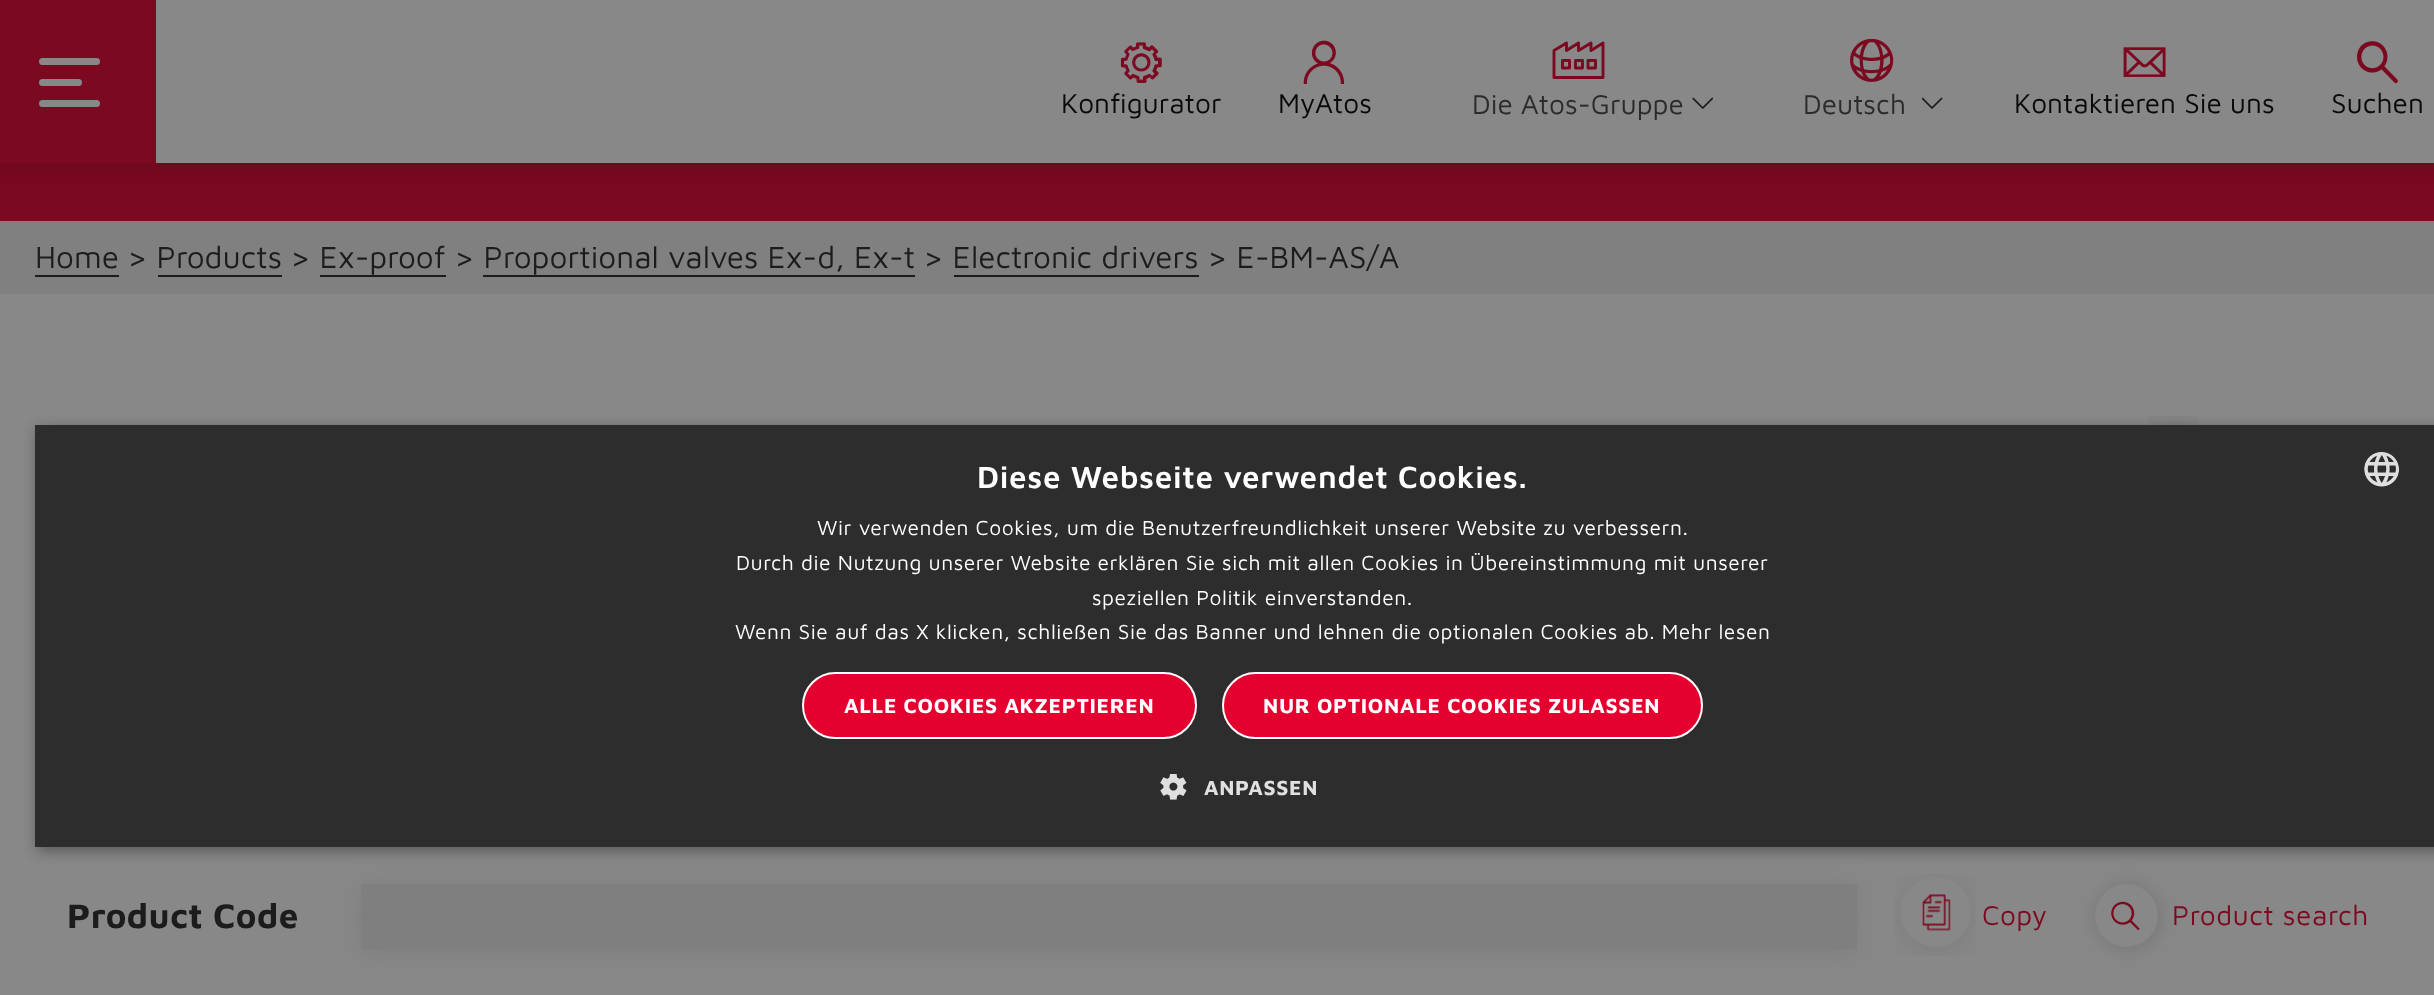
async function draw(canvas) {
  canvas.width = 2434;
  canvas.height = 995;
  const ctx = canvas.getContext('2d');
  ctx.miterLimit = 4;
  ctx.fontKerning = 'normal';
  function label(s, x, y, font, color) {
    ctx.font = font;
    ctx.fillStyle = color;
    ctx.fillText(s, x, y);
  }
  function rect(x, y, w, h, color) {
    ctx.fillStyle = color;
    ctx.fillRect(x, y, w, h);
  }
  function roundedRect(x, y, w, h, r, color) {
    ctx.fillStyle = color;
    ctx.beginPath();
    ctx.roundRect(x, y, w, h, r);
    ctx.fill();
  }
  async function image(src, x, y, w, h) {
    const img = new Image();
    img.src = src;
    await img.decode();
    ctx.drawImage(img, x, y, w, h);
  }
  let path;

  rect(0, 0, 2434, 995, '#888');
  rect(0, 163, 2434, 58, '#7b091f');
  ctx.fillStyle = '#09090933';
  ctx.filter = 'blur(13px)';
  ctx.beginPath();
  ctx.rect(-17, -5, 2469, 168);
  ctx.fill();
  ctx.filter = 'none';
  rect(156, 0, 2278, 163, '#888');
  rect(0, 0, 156, 163, '#7b091f');
  roundedRect(39, 58, 61, 7, 3.5, '#888');
  roundedRect(39, 79, 43, 7, 3.5, '#888');
  roundedRect(39, 100, 61, 7, 3.5, '#888');
  await image('assets/img1.png', 1120, 42, 42, 41);
  label('Konfigurator', 1061, 113, '28px Maven Pro', '#090909');
  await image('assets/img2.png', 1303, 40, 42, 44);
  label('MyAtos', 1278, 113, '28px Maven Pro', '#090909');
  path = new Path2D('M1591 50.5V43L1578.5 50.5V43L1566.5 50.5V43L1554 50.5V77.5H1603V43ZM1569.5 68H1562.5V60.5H1569.5ZM1582.5 68H1575.5V60.5H1582.5ZM1595.5 68H1588V60.5H1595.5Z');
  ctx.strokeStyle = '#7b091f';
  ctx.lineWidth = 2.9;
  ctx.lineCap = 'round';
  ctx.lineJoin = 'round';
  ctx.stroke(path);
  label('Die Atos-Gruppe', 1472, 114, '28px Maven Pro', '#2b2b2b');
  await image('assets/img3.png', 1692, 97, 21, 12);
  await image('assets/img4.png', 1850, 39, 44, 43);
  label('Deutsch', 1803, 114, '28px Maven Pro', '#2b2b2b');
  await image('assets/img5.png', 1922, 97, 21, 12);
  await image('assets/img6.png', 2123, 47, 43, 30);
  label('Kontaktieren Sie uns', 2014, 113, '28px Maven Pro', '#090909');
  await image('assets/img7.png', 2357, 41, 41, 43);
  label('Suchen', 2331, 113, '28px Maven Pro', '#090909');
  rect(0, 221, 2434, 73, '#808080');
  label('Home', 35, 268, '31.5px Maven Pro', '#1d1c1c');
  rect(35, 275, 84, 2, '#1d1c1c');
  label('> Products', 127, 268, '31.5px Maven Pro', '#1d1c1c');
  rect(158, 275, 124, 2, '#1d1c1c');
  label('> Ex-proof', 290, 268, '31.5px Maven Pro', '#1d1c1c');
  rect(320, 275, 126, 2, '#1d1c1c');
  label('> Proportional valves Ex-d, Ex-t', 454, 268, '31.5px Maven Pro', '#1d1c1c');
  rect(483, 275, 432, 2, '#1d1c1c');
  label('> Electronic drivers', 923, 268, '31.5px Maven Pro', '#1d1c1c');
  rect(954, 275, 245, 2, '#1d1c1c');
  label('> E-BM-AS/A', 1207, 268, '31.5px Maven Pro', '#1d1c1c');
  await image('assets/img8.png', 2148, 416, 51, 9);
  ctx.letterSpacing = '0.5px';
  label('Product Code', 67, 928, 'bold 35px Maven Pro', '#1d1c1c');
  ctx.fillStyle = '#7d7d7d';
  ctx.filter = 'blur(10.5px)';
  ctx.beginPath();
  ctx.rect(361, 887, 1496, 65);
  ctx.fill();
  ctx.filter = 'none';
  rect(361, 884, 1496, 65, '#7f7f7f');
  await image('assets/img9.png', 1895, 874, 81, 82);
  label('Copy', 1982, 925, '28px Maven Pro', '#7b091f');
  ctx.fillStyle = '#787777';
  ctx.filter = 'blur(9px)';
  ctx.beginPath();
  ctx.roundRect(2095, 884, 66, 66, 33);
  ctx.fill();
  ctx.filter = 'none';
  ctx.fillStyle = '#888';
  ctx.beginPath();
  ctx.arc(2126.5, 915.5, 31.5, 0, 2 * Math.PI);
  ctx.fill();
  await image('assets/img10.png', 2111, 901, 29, 30);
  label('Product search', 2172, 925, '28px Maven Pro', '#7b091f');
  ctx.fillStyle = '#00000059';
  ctx.filter = 'blur(7px)';
  ctx.beginPath();
  ctx.rect(37, 429, 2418, 422);
  ctx.fill();
  ctx.filter = 'none';
  rect(35, 425, 2399, 422, '#2d2d2d');
  ctx.letterSpacing = '0.7px';
  label('Diese Webseite verwendet Cookies.', 977, 488, '600 31.5px Maven Pro', '#fff');
  await image('assets/img11.png', 2364, 452, 35, 35);
  ctx.letterSpacing = '0.53px';
  label('Wir verwenden Cookies, um die Benutzerfreundlichkeit unserer Website zu verbessern.', 817, 535, '21px Maven Pro', '#fff');
  label('Durch die Nutzung unserer Website erklären Sie sich mit allen Cookies in Übereinstimmung mit unserer', 736, 570, '21px Maven Pro', '#fff');
  label('speziellen Politik einverstanden.', 1092, 605, '21px Maven Pro', '#fff');
  label('Wenn Sie auf das X klicken, schließen Sie das Banner und lehnen die optionalen Cookies ab. Mehr lesen', 735, 639, '21px Maven Pro', '#fff');
  ctx.fillStyle = '#e4012f';
  ctx.beginPath();
  ctx.roundRect(803, 673, 393, 65, 32.5);
  ctx.fill();
  ctx.strokeStyle = '#fff';
  ctx.lineWidth = 2;
  ctx.lineJoin = 'miter';
  ctx.stroke();
  ctx.letterSpacing = '0.7px';
  label('ALLE COOKIES AKZEPTIEREN', 844, 713, 'bold 21px Maven Pro', '#fff');
  ctx.fillStyle = '#e4012f';
  ctx.beginPath();
  ctx.roundRect(1223, 673, 479, 65, 32.5);
  ctx.fill();
  ctx.stroke();
  label('NUR OPTIONALE COOKIES ZULASSEN', 1263, 713, 'bold 21px Maven Pro', '#fff');
  await image('assets/img12.png', 1160, 774, 27, 26);
  label('ANPASSEN', 1204, 795, 'bold 21px Maven Pro', '#e0e0e0');
}

draw(document.querySelector('canvas'));
